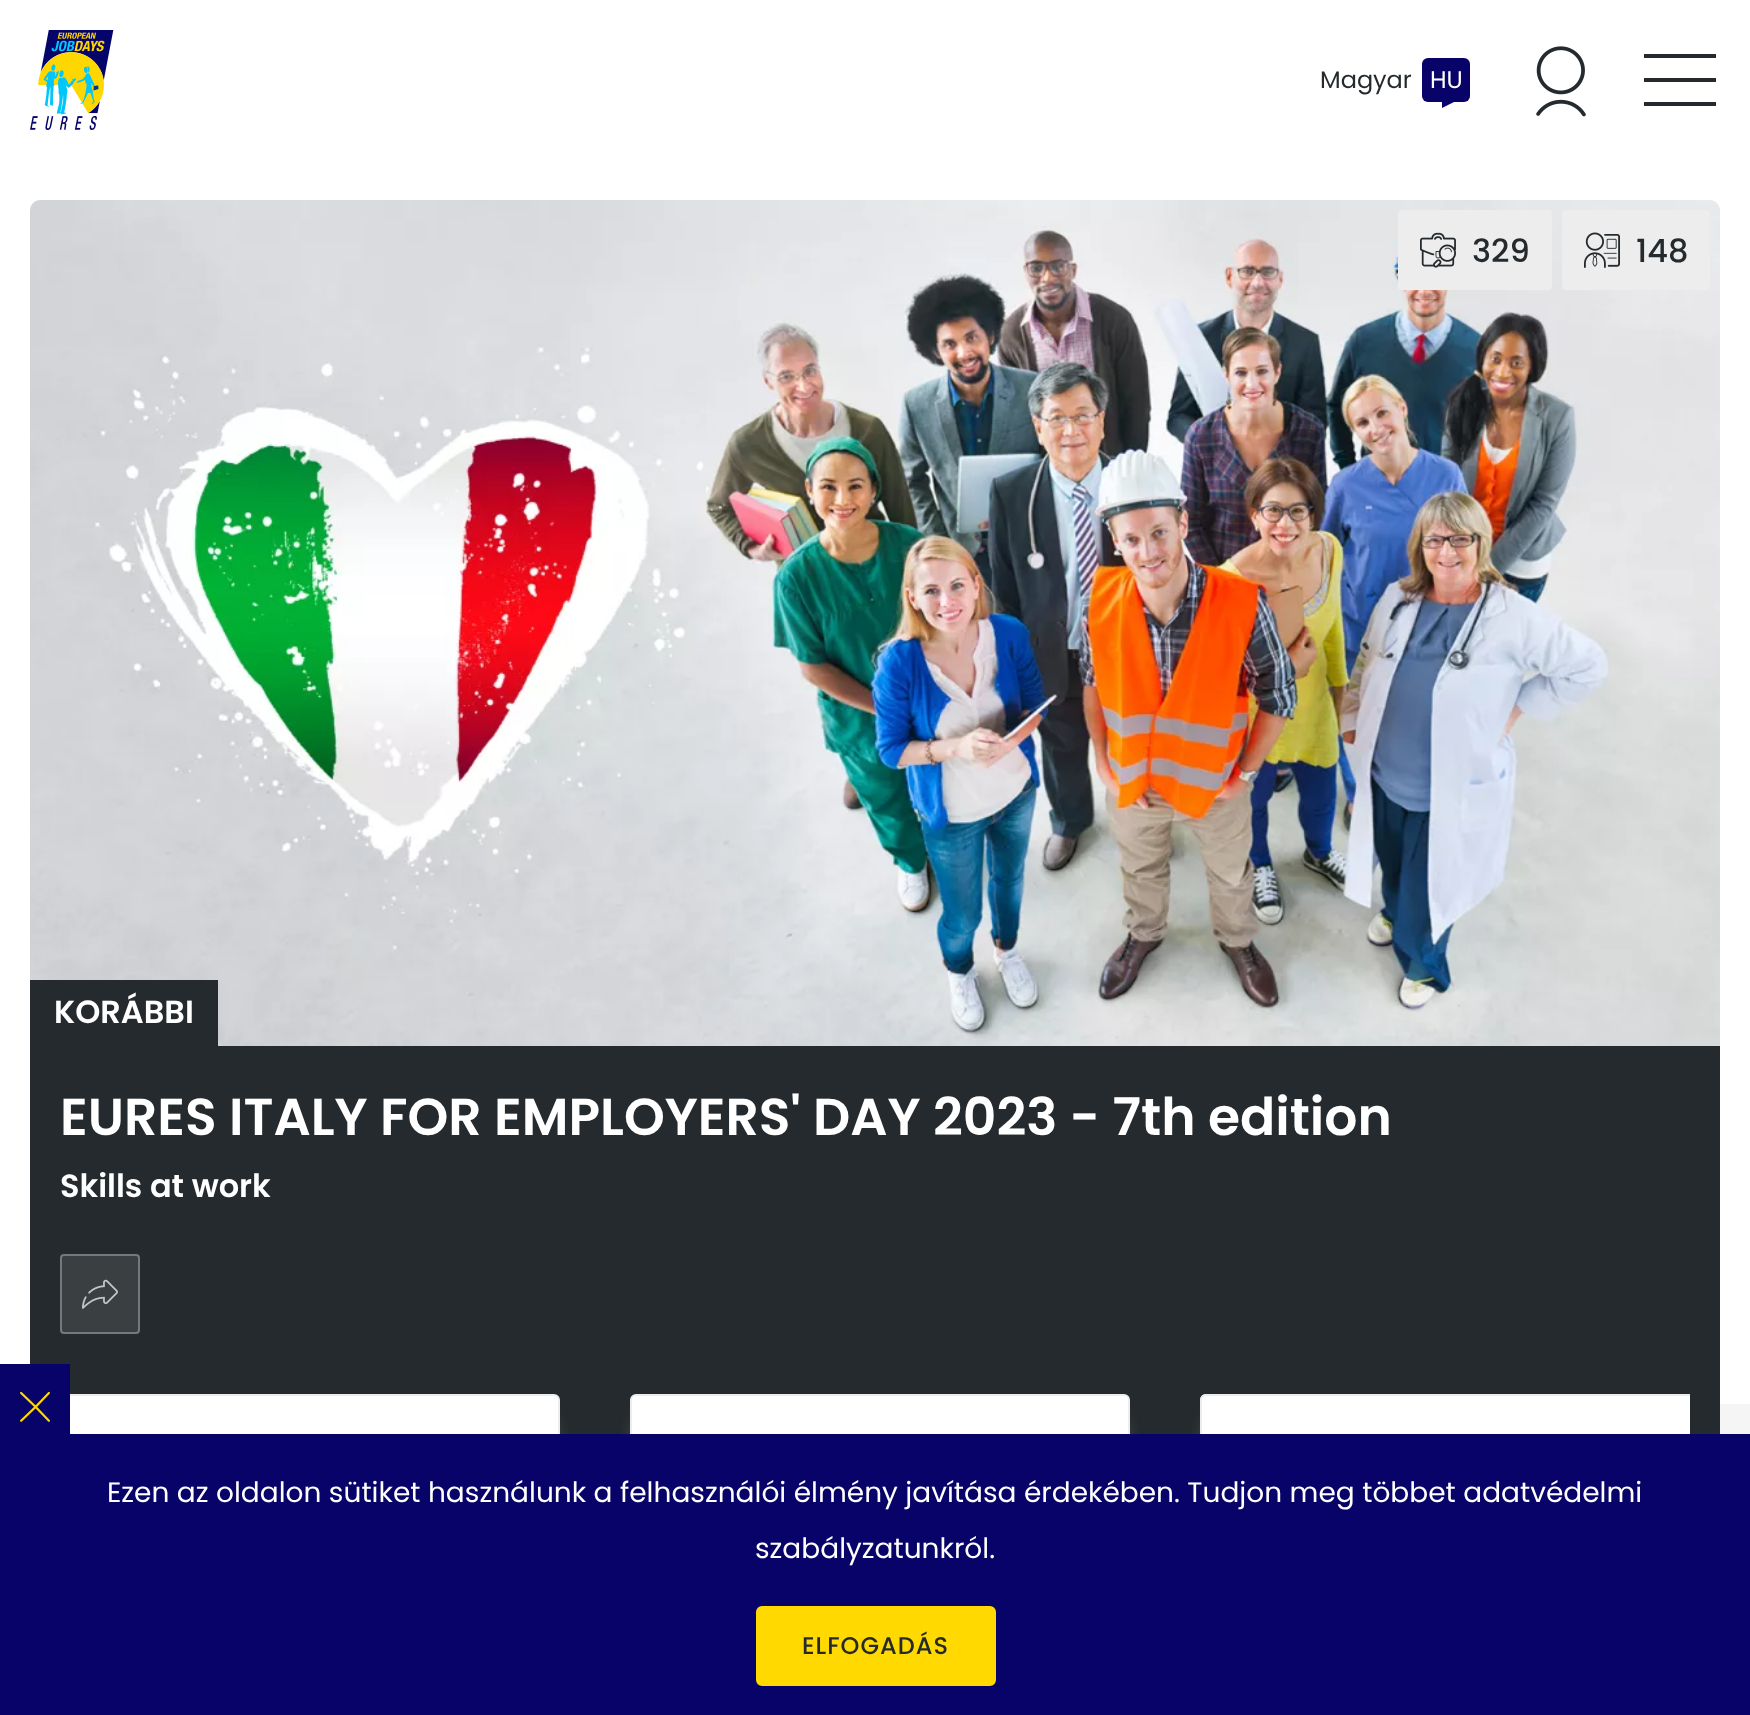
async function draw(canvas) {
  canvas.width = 1750;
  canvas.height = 1715;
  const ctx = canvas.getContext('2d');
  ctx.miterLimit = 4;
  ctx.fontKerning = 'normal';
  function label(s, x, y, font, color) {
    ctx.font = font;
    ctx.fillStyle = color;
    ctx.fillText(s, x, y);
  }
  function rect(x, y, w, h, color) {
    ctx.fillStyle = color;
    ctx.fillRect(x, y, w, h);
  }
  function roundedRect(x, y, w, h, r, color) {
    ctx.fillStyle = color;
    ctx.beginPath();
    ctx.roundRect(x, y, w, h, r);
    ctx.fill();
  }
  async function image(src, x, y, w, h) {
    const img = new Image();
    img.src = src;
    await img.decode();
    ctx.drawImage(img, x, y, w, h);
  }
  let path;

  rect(0, 0, 1750, 1715, '#fff');
  await image('assets/img1.png', 30, 30, 84, 100);
  label('Magyar', 1320, 88, '24px Poppins', '#242a2d');
  roundedRect(1422, 58, 48, 44, 6, '#080368');
  label('HU', 1430, 88, '24px Poppins', '#fff');
  ctx.fillStyle = '#080368';
  path = new Path2D('M1442 108V96L1454 102Z');
  ctx.fill(path);
  await image('assets/img2.png', 1536, 46, 50, 71);
  rect(1644, 54, 72, 4, '#242a2d');
  rect(1644, 78, 72, 4, '#242a2d');
  rect(1644, 102, 72, 4, '#242a2d');
  await image('assets/img3.png', 30, 200, 1690, 846);
  roundedRect(1398, 210, 154, 80, 4, '#ededed');
  await image('assets/img4.png', 1420, 232, 36, 36);
  label('329', 1472, 262, '500 32px Poppins', '#242a2d');
  roundedRect(1562, 210, 148, 80, 4, '#ededed');
  await image('assets/img5.png', 1584, 232, 36, 36);
  label('148', 1636, 262, '500 32px Poppins', '#242a2d');
  rect(30, 1046, 1690, 388, '#242a2d');
  rect(30, 980, 188, 66, '#242a2d');
  label('KORÁBBI', 54, 1023, '600 32px Poppins', '#fff');
  label('EURES ITALY FOR EMPLOYERS\' DAY 2023 - 7th edition', 60, 1135, '600 52px Poppins', '#fff');
  label('Skills at work', 60, 1197, '600 32px Poppins', '#fff');
  roundedRect(60, 1254, 80, 80, 4, '#3a3f42');
  ctx.beginPath();
  ctx.roundRect(61, 1255, 78, 78, 3);
  ctx.strokeStyle = '#ffffff4d';
  ctx.lineWidth = 2;
  ctx.stroke();
  await image('assets/img6.png', 82, 1279, 36, 30);
  ctx.fillStyle = '#ededed80';
  ctx.filter = 'blur(10px)';
  ctx.beginPath();
  ctx.rect(70, 1424, 480, 232);
  ctx.fill();
  ctx.filter = 'none';
  ctx.fillStyle = '#fff';
  ctx.beginPath();
  ctx.roundRect(61, 1395, 498, 250, 5);
  ctx.fill();
  ctx.strokeStyle = '#ededed';
  ctx.stroke();
  ctx.fillStyle = '#ededed80';
  ctx.filter = 'blur(10px)';
  ctx.beginPath();
  ctx.rect(640, 1424, 480, 232);
  ctx.fill();
  ctx.filter = 'none';
  ctx.fillStyle = '#fff';
  ctx.beginPath();
  ctx.roundRect(631, 1395, 498, 250, 5);
  ctx.fill();
  ctx.stroke();
  rect(1720, 1404, 30, 30, '#f5f5f5');
  ctx.save();
  ctx.beginPath();
  ctx.rect(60, 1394, 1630, 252);
  ctx.clip();
  ctx.fillStyle = '#ededed80';
  ctx.filter = 'blur(10px)';
  ctx.beginPath();
  ctx.rect(1210, 1424, 480, 232);
  ctx.fill();
  ctx.filter = 'none';
  ctx.restore();
  ctx.fillStyle = '#fff';
  ctx.beginPath();
  ctx.roundRect(1200, 1394, 490, 252, [6, 0, 0, 6]);
  ctx.fill();
  ctx.save();
  ctx.beginPath();
  ctx.rect(60, 1394, 1630, 252);
  ctx.clip();
  ctx.beginPath();
  ctx.roundRect(1201, 1395, 498, 250, 5);
  ctx.stroke();
  ctx.restore();
  rect(0, 1434, 1750, 281, '#080368');
  rect(0, 1364, 70, 70, '#080368');
  await image('assets/img7.png', 20, 1391, 30, 31);
  label('Ezen az oldalon sütiket használunk a felhasználói élmény javítása érdekében. Tudjon meg többet adatvédelmi', 107, 1502, '28px Poppins', '#fff');
  label('szabályzatunkról.', 755, 1558, '28px Poppins', '#fff');
  ctx.fillStyle = '#ffd900';
  ctx.beginPath();
  ctx.roundRect(757, 1607, 238, 78, 5);
  ctx.fill();
  ctx.strokeStyle = '#ffd900';
  ctx.stroke();
  ctx.letterSpacing = '1px';
  label('ELFOGADÁS', 802, 1654, '500 24px Poppins', '#242a2d');
}

draw(document.querySelector('canvas'));
